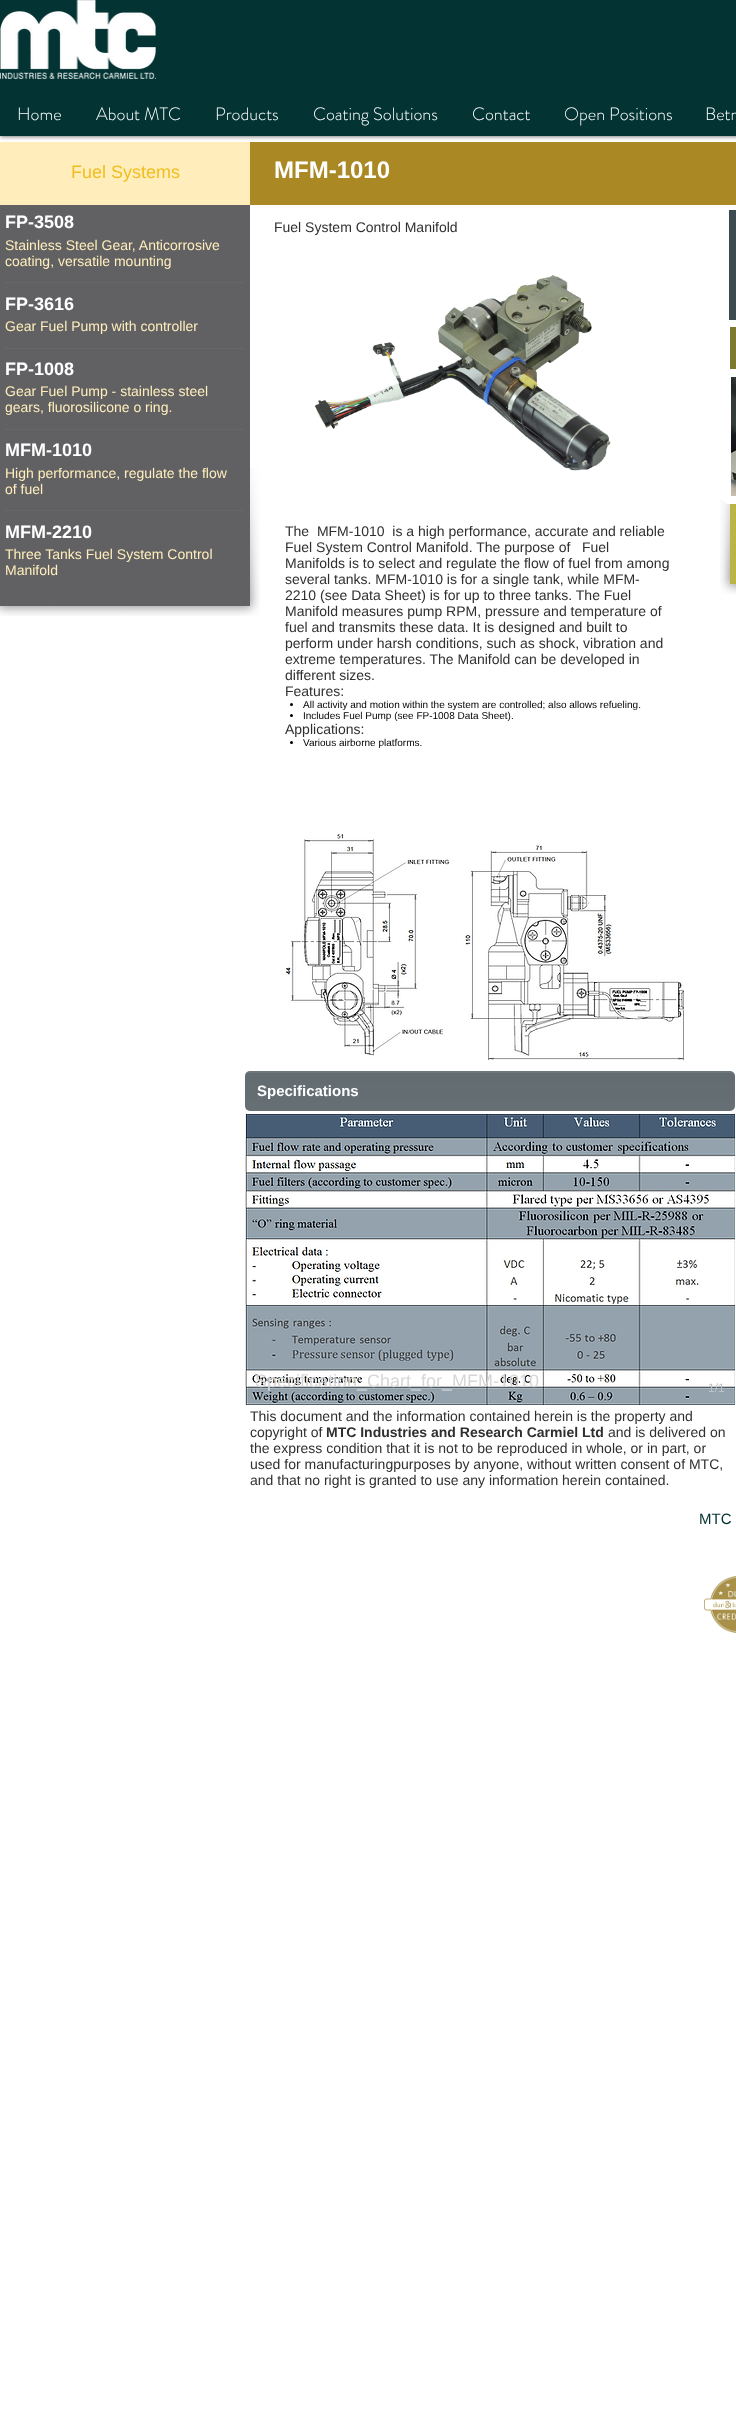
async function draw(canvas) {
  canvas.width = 736;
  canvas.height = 2424;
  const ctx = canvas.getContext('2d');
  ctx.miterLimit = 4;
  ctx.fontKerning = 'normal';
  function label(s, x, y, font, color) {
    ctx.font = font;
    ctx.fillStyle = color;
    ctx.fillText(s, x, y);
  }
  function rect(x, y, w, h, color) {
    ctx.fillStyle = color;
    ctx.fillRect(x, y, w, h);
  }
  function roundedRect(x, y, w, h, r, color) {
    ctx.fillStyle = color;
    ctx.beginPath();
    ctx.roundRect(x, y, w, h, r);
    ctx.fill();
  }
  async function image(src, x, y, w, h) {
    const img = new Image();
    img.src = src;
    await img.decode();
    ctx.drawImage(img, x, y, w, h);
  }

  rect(0, 0, 736, 2424, '#fff');
  ctx.fillStyle = '#000000b3';
  ctx.filter = 'blur(2.5px)';
  ctx.beginPath();
  ctx.rect(0, 0, 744, 136);
  ctx.fill();
  ctx.filter = 'none';
  rect(0, 0, 736, 136, '#043334');
  await image('assets/img1.png', 0, 0, 156, 79);
  label('Home', 17, 120, '300 18px "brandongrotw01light"', '#fff');
  label('About MTC', 96, 120, '300 18px "brandongrotw01light"', '#fff');
  label('Products', 215, 120, '300 18px "brandongrotw01light"', '#fff');
  label('Coating Solutions', 313, 120, '300 18px "brandongrotw01light"', '#fff');
  label('Contact', 472, 120, '300 18px "brandongrotw01light"', '#fff');
  label('Open Positions', 564, 120, '300 18px "brandongrotw01light"', '#fff');
  label('Betn', 705, 120, '300 18px "brandongrotw01light"', '#fff');
  rect(250, 142, 486, 63, '#aa8925');
  rect(0, 142, 250, 63, '#ffeebc');
  label('Fuel Systems', 71, 178, '18px Liberation Sans', '#f2bd1e');
  label('MFM-1010', 274, 178, 'bold 24px Liberation Sans', '#fff');
  await image('assets/img4.png', 215, 468, 45, 148);
  rect(0, 205, 250, 401, '#616063');
  await image('assets/img2.png', 0, 606, 35, 10);
  await image('assets/img3.png', 35, 606, 180, 10);
  rect(729, 210, 7, 110, '#3d4a50');
  label('FP-3508', 5, 228, 'bold 18px Liberation Sans', '#fff');
  label('Stainless Steel Gear, Anticorrosive', 5, 250, '14px Liberation Sans', '#ffeebc');
  label('coating, versatile mounting', 5, 266, '14px Liberation Sans', '#ffeebc');
  rect(5, 282, 240, 1, '#676669');
  label('FP-3616', 5, 310, 'bold 18px Liberation Sans', '#fff');
  label('Gear Fuel Pump with controller', 5, 331, '14px Liberation Sans', '#ffeebc');
  rect(5, 348, 240, 1, '#676669');
  label('FP-1008', 5, 375, 'bold 18px Liberation Sans', '#fff');
  label('Gear Fuel Pump - stainless steel', 5, 396, '14px Liberation Sans', '#ffeebc');
  label('gears, fluorosilicone o ring.', 5, 412, '14px Liberation Sans', '#ffeebc');
  rect(5, 429, 240, 1, '#676669');
  label('MFM-1010', 5, 456, 'bold 18px Liberation Sans', '#fff');
  label('High performance, regulate the flow', 5, 478, '14px Liberation Sans', '#ffeebc');
  label('of fuel', 5, 494, '14px Liberation Sans', '#ffeebc');
  rect(5, 510, 240, 1, '#676669');
  label('MFM-2210', 5, 538, 'bold 18px Liberation Sans', '#fff');
  label('Three Tanks Fuel System Control', 5, 559, '14px Liberation Sans', '#ffeebc');
  label('Manifold', 5, 575, '14px Liberation Sans', '#ffeebc');
  label('Fuel System Control Manifold', 274, 232, '14px Liberation Sans', '#2f2f30');
  await image('assets/img5.png', 314, 275, 297, 196);
  rect(730, 327, 6, 46, '#7d792f');
  await image('assets/img7.png', 720, 499, 16, 95);
  ctx.beginPath();
  ctx.roundRect(727, 373, 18, 127, 1);
  ctx.strokeStyle = '#fff';
  ctx.lineWidth = 8;
  ctx.stroke();
  await image('assets/img6.png', 731, 377, 5, 119);
  rect(730, 504, 6, 80, '#bbb546');
  label('The  MFM-1010  is a high performance, accurate and reliable', 285, 536, '14px Liberation Sans', '#2f2f30');
  label('Fuel System Control Manifold. The purpose of   Fuel', 285, 552, '14px Liberation Sans', '#2f2f30');
  label('Manifolds is to select and regulate the flow of fuel from among', 285, 568, '14px Liberation Sans', '#2f2f30');
  label('several tanks. MFM-1010 is for a single tank, while MFM-', 285, 584, '14px Liberation Sans', '#2f2f30');
  label('2210 (see Data Sheet) is for up to three tanks. The Fuel', 285, 600, '14px Liberation Sans', '#2f2f30');
  label('Manifold measures pump RPM, pressure and temperature of', 285, 616, '14px Liberation Sans', '#2f2f30');
  label('fuel and transmits these data. It is designed and built to', 285, 632, '14px Liberation Sans', '#2f2f30');
  label('perform under harsh conditions, such as shock, vibration and', 285, 648, '14px Liberation Sans', '#2f2f30');
  label('extreme temperatures. The Manifold can be developed in', 285, 664, '14px Liberation Sans', '#2f2f30');
  label('different sizes.', 285, 680, '14px Liberation Sans', '#2f2f30');
  label('Features:', 285, 696, '14px Liberation Sans', '#2f2f30');
  ctx.fillStyle = '#000';
  ctx.beginPath();
  ctx.arc(291.5, 704.5, 1.5, 0, 2 * Math.PI);
  ctx.fill();
  label('All activity and motion within the system are controlled; also allows refueling.', 303, 708, '10px Liberation Sans', '#000');
  ctx.beginPath();
  ctx.arc(291.5, 715.5, 1.5, 0, 2 * Math.PI);
  ctx.fill();
  label('Includes Fuel Pump (see FP-1008 Data Sheet).', 303, 719, '10px Liberation Sans', '#000');
  label('Applications:', 285, 734, '14px Liberation Sans', '#2f2f30');
  ctx.fillStyle = '#000';
  ctx.beginPath();
  ctx.arc(291.5, 742.5, 1.5, 0, 2 * Math.PI);
  ctx.fill();
  label('Various airborne platforms.', 303, 746, '10px Liberation Sans', '#000');
  await image('assets/img8.png', 285, 833, 399, 228);
  roundedRect(245, 1071, 490, 40, 5, '#6d777c');
  await image('assets/img9.png', 245, 1073, 490, 38);
  label('Specifications', 257, 1096, 'bold 15px Liberation Sans', '#fff');
  await image('assets/img10.png', 245, 1114, 490, 291);
  label('Specification_Chart_for_MFM-1010', 255, 1387, '18px Liberation Sans', '#d7d7d8');
  label('1/1', 708, 1392, '12px Liberation Sans', '#bbc2c8');
  label('This document and the information contained herein is the property and', 250, 1421, '14px Liberation Sans', '#2f2f30');
  label('copyright of', 250, 1437, '14px Liberation Sans', '#2f2f30');
  label('MTC Industries and Research Carmiel Ltd', 326, 1437, 'bold 14px Liberation Sans', '#2f2f30');
  label('and is delivered on', 608, 1437, '14px Liberation Sans', '#2f2f30');
  label('the express condition that it is not to be reproduced in whole, or in part, or', 250, 1453, '14px Liberation Sans', '#2f2f30');
  label('used for manufacturingpurposes by anyone, without written consent of MTC,', 250, 1469, '14px Liberation Sans', '#2f2f30');
  label('and that no right is granted to use any information herein contained.', 250, 1485, '14px Liberation Sans', '#2f2f30');
  label('MTC', 699, 1524, '15px Liberation Sans', '#043334');
  await image('assets/img11.png', 704, 1576, 32, 57);
}

draw(document.querySelector('canvas'));
